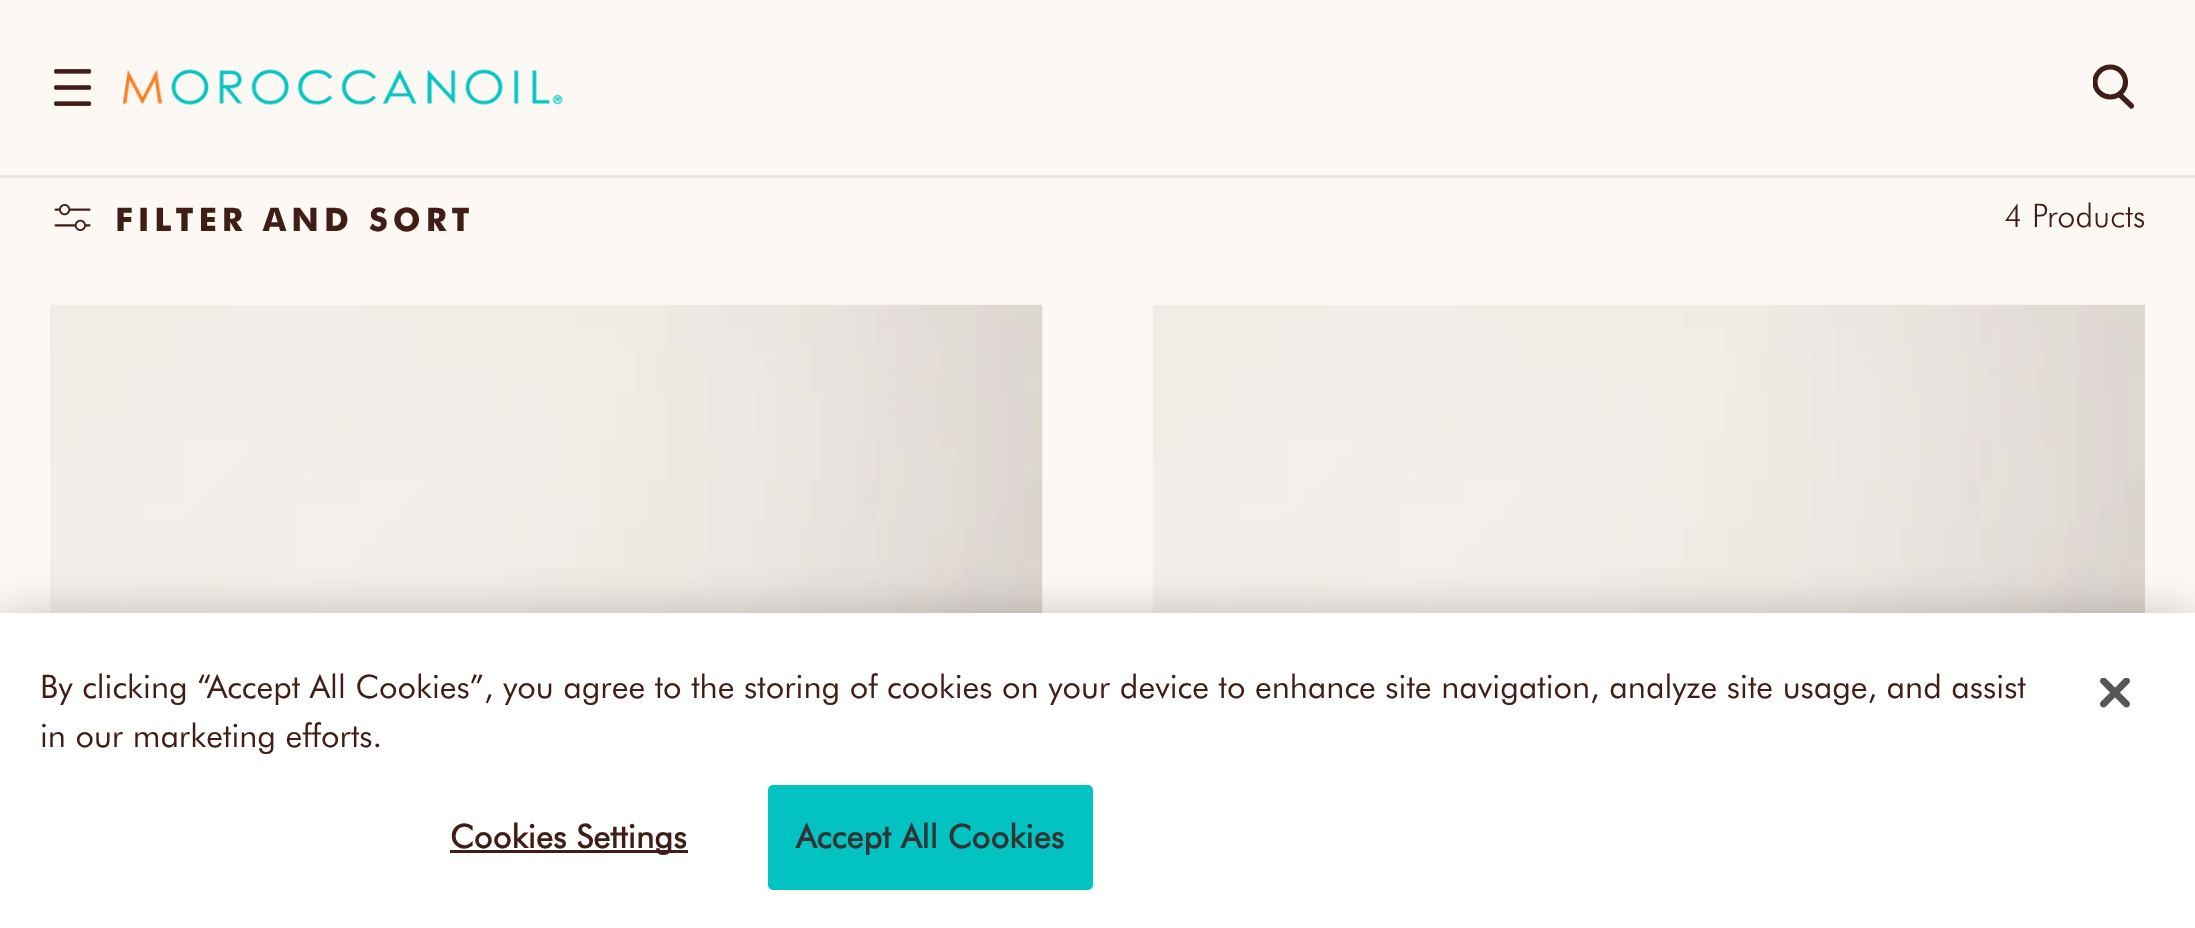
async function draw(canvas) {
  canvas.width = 2195;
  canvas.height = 928;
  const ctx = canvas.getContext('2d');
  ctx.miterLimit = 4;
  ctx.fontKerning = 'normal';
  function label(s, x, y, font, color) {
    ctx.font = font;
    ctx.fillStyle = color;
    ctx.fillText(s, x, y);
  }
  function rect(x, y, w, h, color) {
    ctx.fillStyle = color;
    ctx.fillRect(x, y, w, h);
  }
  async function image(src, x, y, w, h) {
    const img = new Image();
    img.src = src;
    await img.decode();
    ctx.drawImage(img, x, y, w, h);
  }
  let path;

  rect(0, 0, 2195, 928, '#fcf8f4');
  rect(0, 175, 2195, 3, '#ece5e3');
  await image('assets/img1.png', 54, 69, 38, 37);
  await image('assets/img2.png', 123, 69, 440, 36);
  path = new Path2D('M2120.5 95.5L2131.5 106');
  ctx.strokeStyle = '#401e17';
  ctx.lineWidth = 5.2;
  ctx.lineCap = 'round';
  ctx.stroke(path);
  ctx.save();
  ctx.beginPath();
  ctx.rect(2093, 48, 42, 80);
  ctx.clip();
  path = new Path2D('M2125.5 82C2125.5 90.5 2118.5 97 2110.5 97C2102 97 2095 90.5 2095 82C2095 73.5 2102 67 2110.5 67C2118.5 67 2125.5 73.5 2125.5 82Z');
  ctx.stroke(path);
  ctx.restore();
  await image('assets/img3.png', 54, 204, 37, 27);
  ctx.letterSpacing = '5px';
  label('FILTER AND SORT', 115, 231, '900 32.5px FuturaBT', '#401e17');
  ctx.letterSpacing = '0px';
  label('4 Products', 2004, 227, '300 32.5px FuturaBT', '#401e17');
  await image('assets/img4.png', 50, 304, 993, 309);
  await image('assets/img5.png', 1152, 304, 993, 309);
  ctx.fillStyle = '#00000033';
  ctx.filter = 'blur(22.5px)';
  ctx.beginPath();
  ctx.rect(0, 613, 2195, 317);
  ctx.fill();
  ctx.filter = 'none';
  rect(0, 613, 2195, 315, '#fff');
  label('By clicking “Accept All Cookies”, you agree to the storing of cookies on your device to enhance site navigation, analyze site usage, and assist', 40, 698, '32.52px FuturaBT', '#401e17');
  label('in our marketing efforts.', 40, 747, '32.52px FuturaBT', '#401e17');
  rect(450, 850, 238, 3, '#401e17');
  ctx.letterSpacing = '0.3px';
  label('Cookies Settings', 450, 848, 'bold 32.52px FuturaBT', '#401e17');
  ctx.fillStyle = '#02c3c2';
  ctx.beginPath();
  ctx.roundRect(769.5, 786.5, 322, 102, 3.5);
  ctx.fill();
  ctx.strokeStyle = '#02c3c2';
  ctx.lineWidth = 3;
  ctx.stroke();
  label('Accept All Cookies', 796, 848, 'bold 32.52px FuturaBT', '#333');
  await image('assets/img6.png', 2100, 678, 30, 30);
}

draw(document.querySelector('canvas'));
